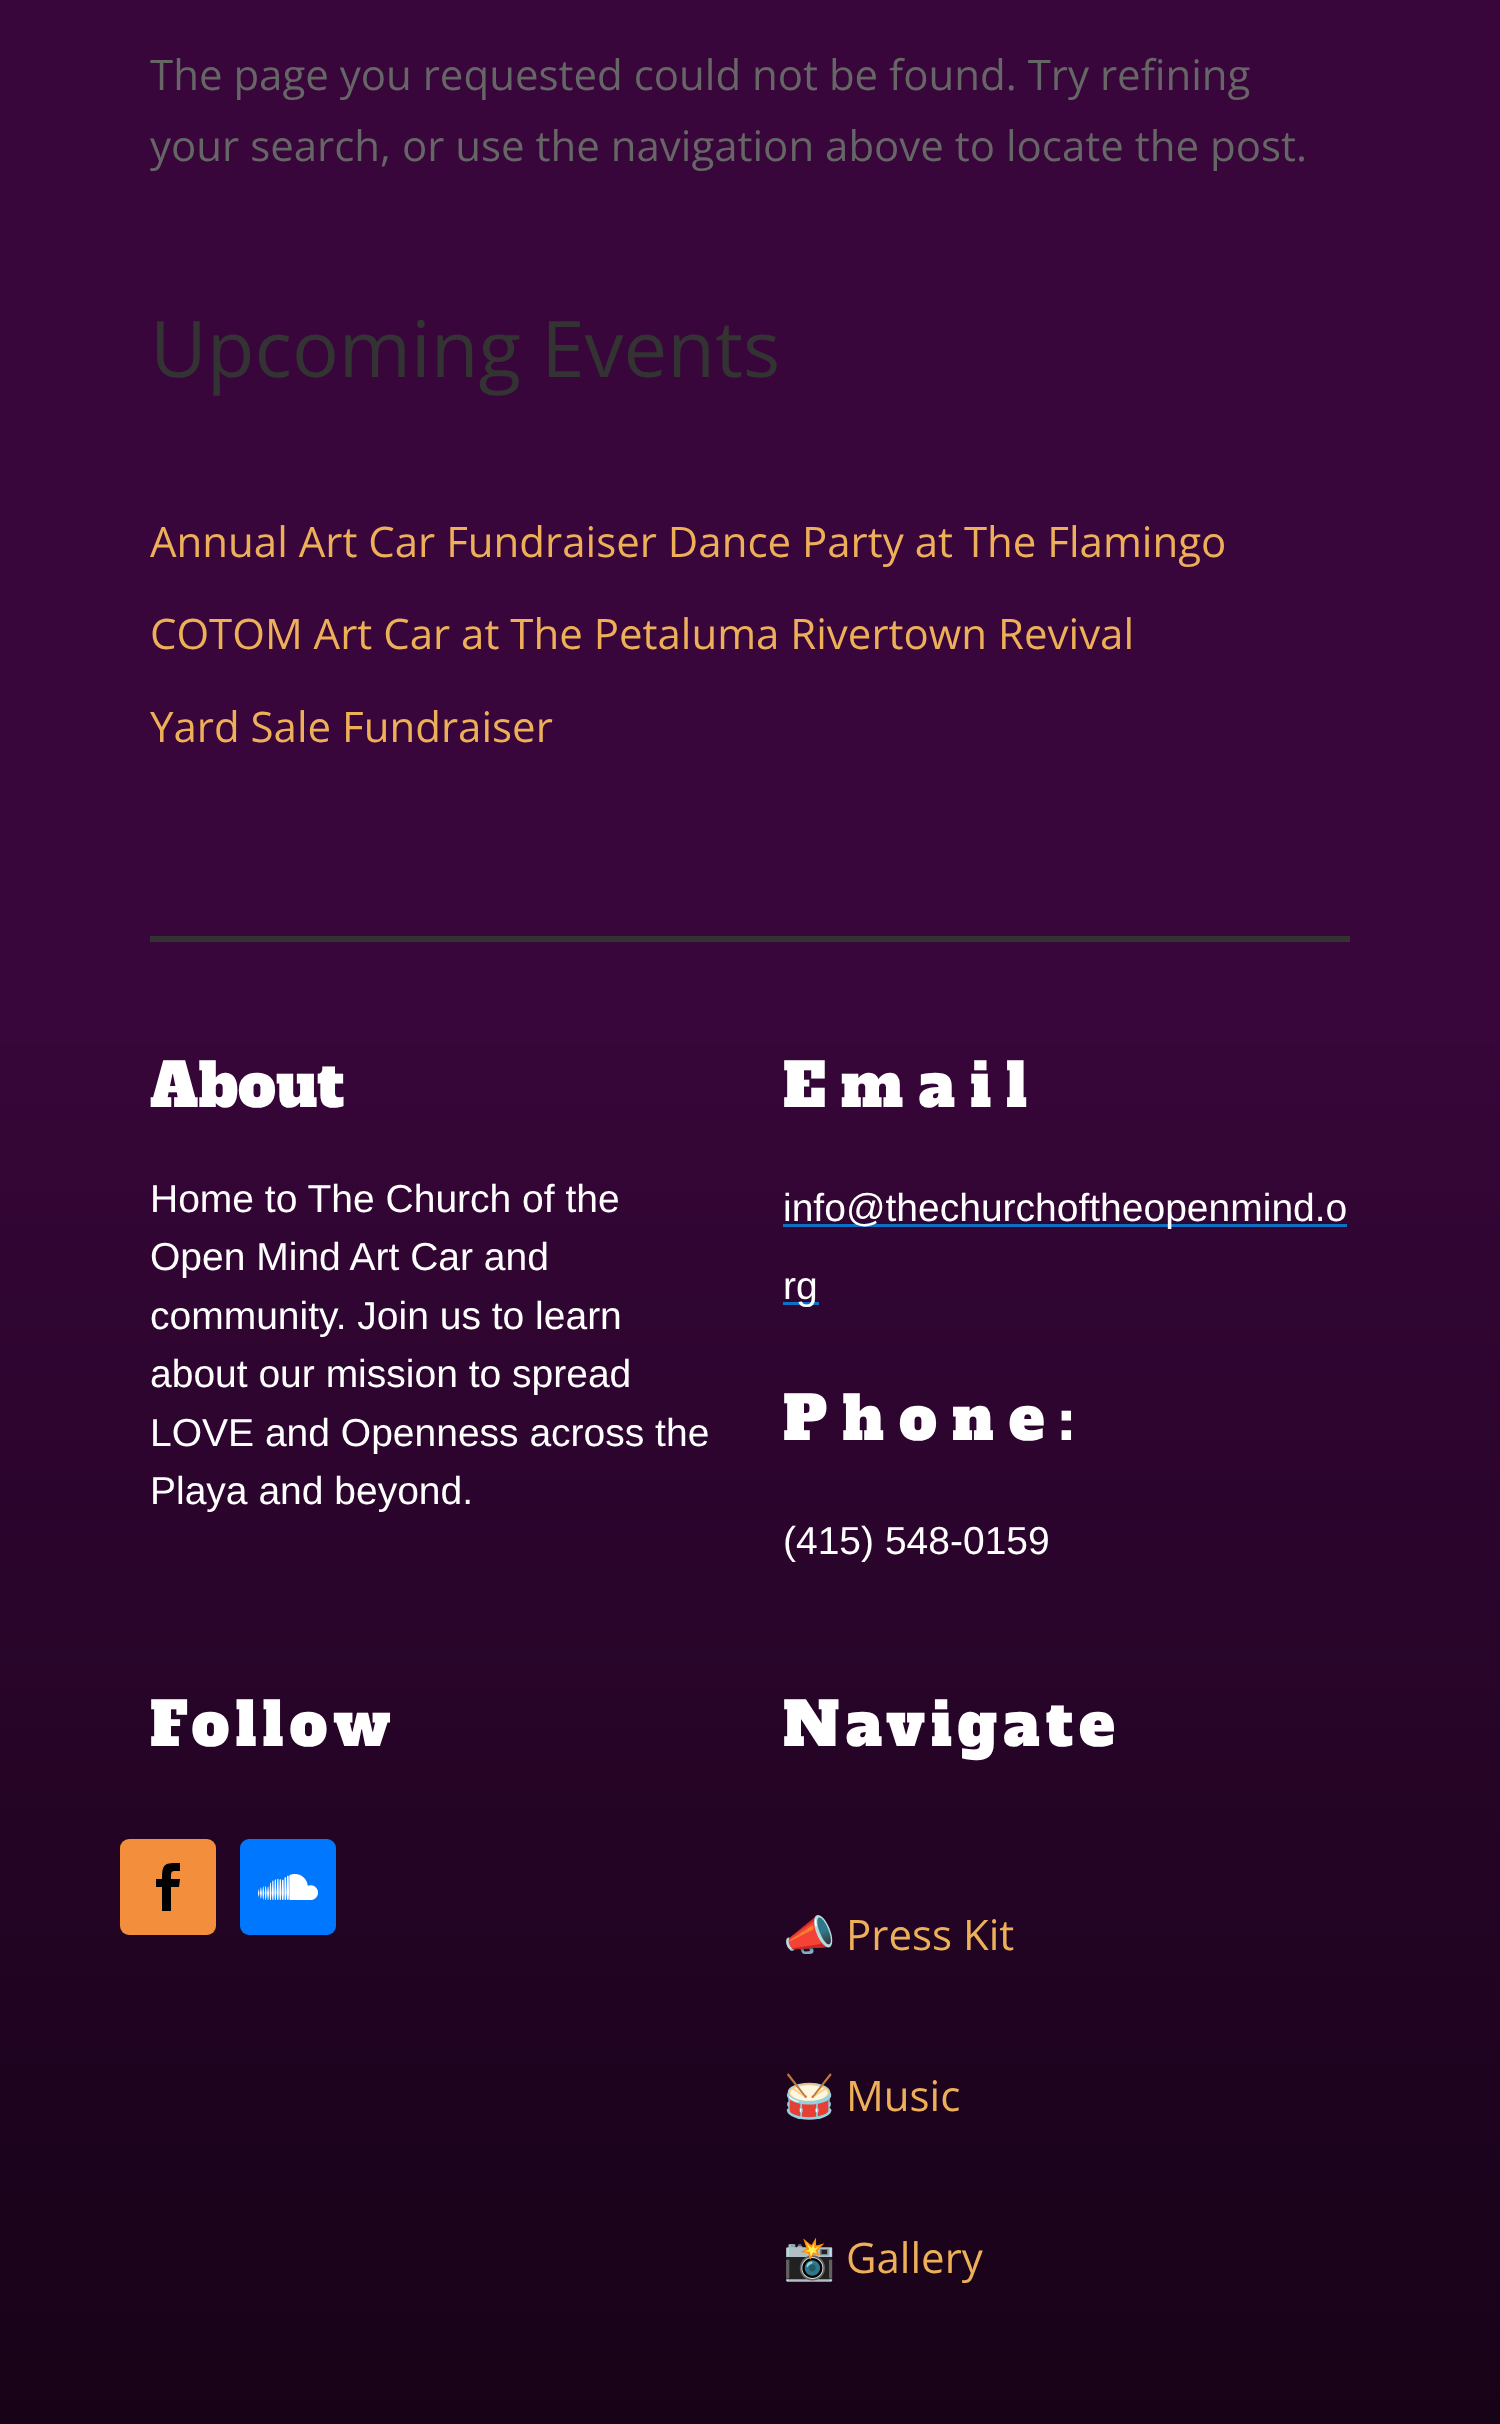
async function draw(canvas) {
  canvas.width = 1500;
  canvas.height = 2424;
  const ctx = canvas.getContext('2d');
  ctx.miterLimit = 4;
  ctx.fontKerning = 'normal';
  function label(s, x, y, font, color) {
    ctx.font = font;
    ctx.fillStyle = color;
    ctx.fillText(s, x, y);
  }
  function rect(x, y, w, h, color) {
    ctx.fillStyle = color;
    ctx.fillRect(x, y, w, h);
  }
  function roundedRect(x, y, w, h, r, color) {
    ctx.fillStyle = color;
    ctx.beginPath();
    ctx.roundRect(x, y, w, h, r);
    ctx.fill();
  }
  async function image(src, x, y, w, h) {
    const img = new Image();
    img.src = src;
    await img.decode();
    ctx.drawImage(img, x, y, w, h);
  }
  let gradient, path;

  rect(0, 0, 1500, 2424, '#38063a');
  label('The page you requested could not be found. Try refining', 150, 90, '42px Open Sans', '#666');
  label('your search, or use the navigation above to locate the post.', 150, 161, '42px Open Sans', '#666');
  label('Upcoming Events', 150, 377, '78px Open Sans', '#333');
  label('Annual Art Car Fundraiser Dance Party at The Flamingo', 150, 557, '42px Open Sans', '#edb059');
  label('COTOM Art Car at The Petaluma Rivertown Revival', 150, 649, '42px Open Sans', '#edb059');
  label('Yard Sale Fundraiser', 150, 742, '42px Open Sans', '#edb059');
  gradient = ctx.createLinearGradient(750, 936, 750, 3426);
  gradient.addColorStop(0, '#38063a');
  gradient.addColorStop(1, '#000');
  ctx.fillStyle = gradient;
  ctx.fillRect(0, 1043, 1500, 1381);
  rect(150, 936, 1200, 6, '#333');
  label('About', 150, 1107, '60px Alfa Slab One', '#fff');
  label('Home to The Church of the', 150, 1212, '39px Liberation Sans', '#fff');
  label('Open Mind Art Car and', 150, 1270, '39px Liberation Sans', '#fff');
  label('community. Join us to learn', 150, 1329, '39px Liberation Sans', '#fff');
  label('about our mission to spread', 150, 1387, '39px Liberation Sans', '#fff');
  label('LOVE and Openness across the', 150, 1446, '39px Liberation Sans', '#fff');
  label('Playa and beyond.', 150, 1504, '39px Liberation Sans', '#fff');
  ctx.letterSpacing = '15px';
  label('Email', 783, 1107, '60px Alfa Slab One', '#fff');
  rect(783, 1224, 564, 3, '#0c71c3');
  ctx.letterSpacing = '0px';
  label('info@thechurchoftheopenmind.o', 783, 1221, '39px Liberation Sans', '#fff');
  rect(783, 1302, 36, 3, '#0c71c3');
  label('rg', 783, 1299, '39px Liberation Sans', '#fff');
  ctx.letterSpacing = '15px';
  label('Phone:', 783, 1440, '60px Alfa Slab One', '#fff');
  ctx.letterSpacing = '0px';
  label('(415) 548-0159', 783, 1554, '39px Liberation Sans', '#fff');
  ctx.letterSpacing = '6px';
  label('Follow', 150, 1746, '60px Alfa Slab One', '#fff');
  roundedRect(120, 1839, 96, 96, 9, '#f38e3c');
  ctx.fillStyle = '#000';
  path = new Path2D('M162 1911H171V1887H179L180 1879H171C171 1870 171 1871 180 1871V1863C165 1863 162 1863 162 1879H156V1887H162Z');
  ctx.fill(path);
  roundedRect(240, 1839, 96, 96, 9, '#07f');
  await image('assets/img1.png', 258, 1874, 60, 26);
  label('Navigate', 783, 1746, '60px Alfa Slab One', '#fff');
  ctx.letterSpacing = '0px';
  label('📣', 783, 1950, '42px Noto Color Emoji', '#edb059');
  label('Press Kit', 846, 1950, '42px Open Sans', '#edb059');
  label('🥁', 783, 2111, '42px Noto Color Emoji', '#edb059');
  label('Music', 846, 2111, '42px Open Sans', '#edb059');
  label('📸', 783, 2273, '42px Noto Color Emoji', '#edb059');
  label('Gallery', 846, 2273, '42px Open Sans', '#edb059');
}

draw(document.querySelector('canvas'));
